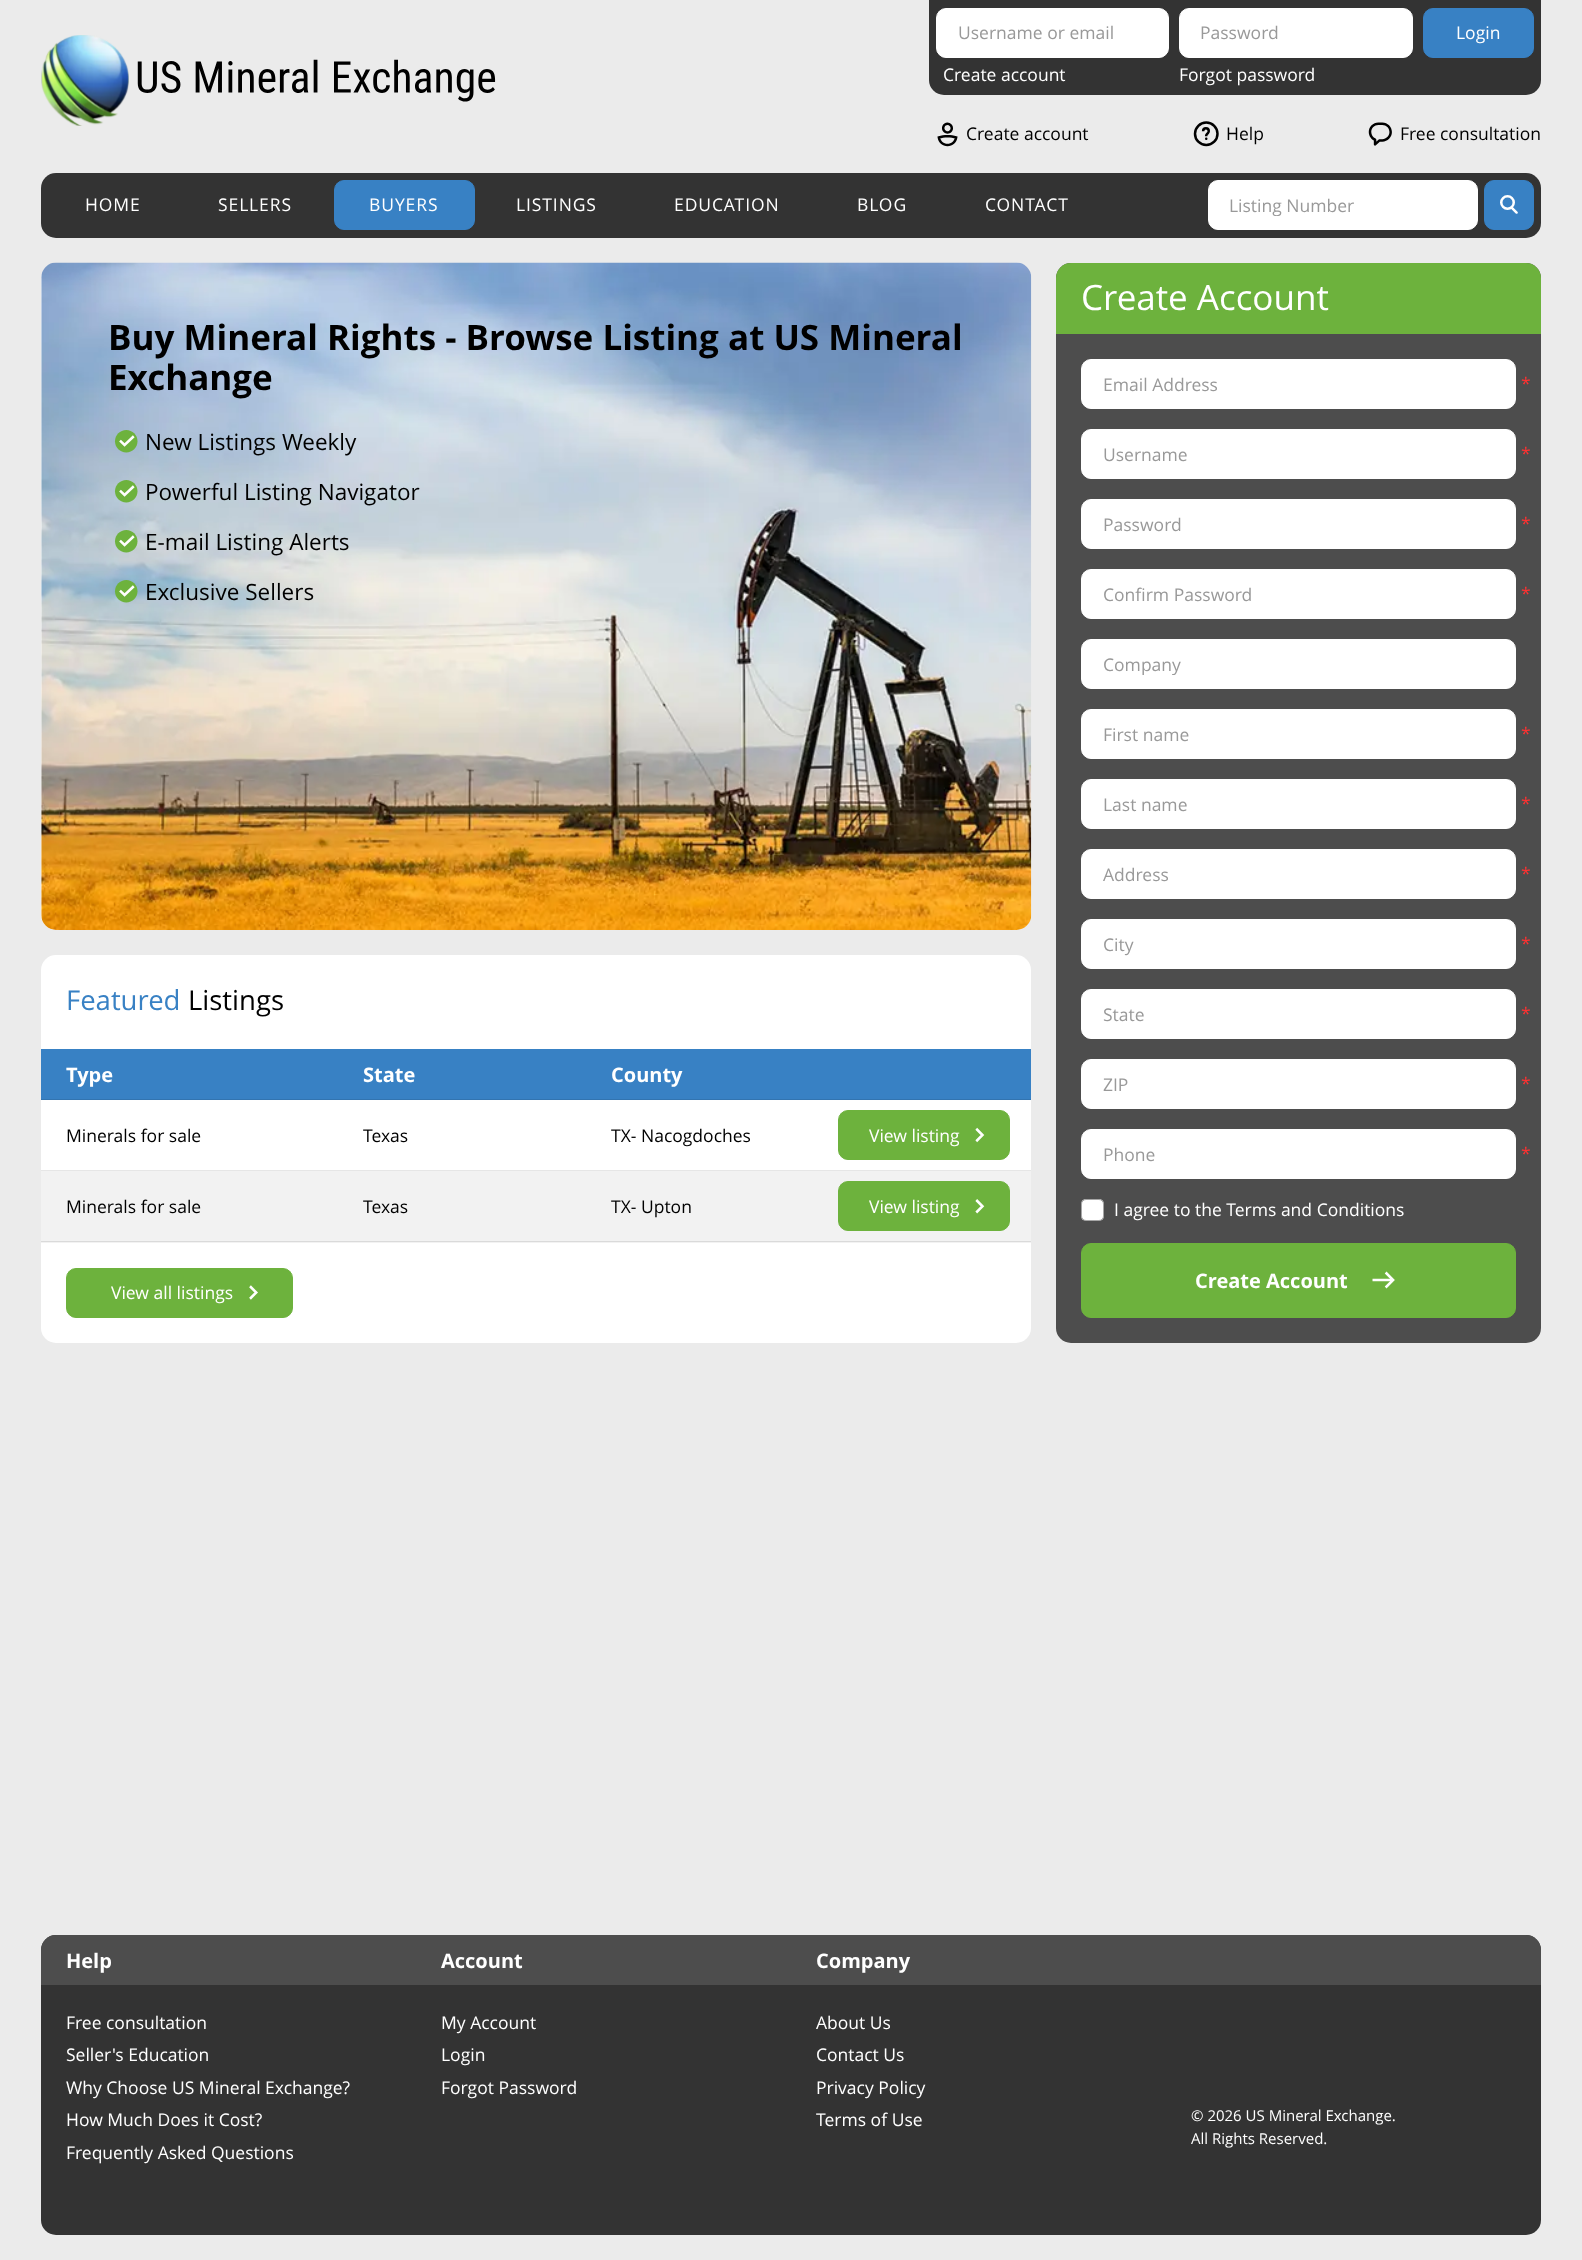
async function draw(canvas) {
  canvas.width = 1582;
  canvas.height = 2260;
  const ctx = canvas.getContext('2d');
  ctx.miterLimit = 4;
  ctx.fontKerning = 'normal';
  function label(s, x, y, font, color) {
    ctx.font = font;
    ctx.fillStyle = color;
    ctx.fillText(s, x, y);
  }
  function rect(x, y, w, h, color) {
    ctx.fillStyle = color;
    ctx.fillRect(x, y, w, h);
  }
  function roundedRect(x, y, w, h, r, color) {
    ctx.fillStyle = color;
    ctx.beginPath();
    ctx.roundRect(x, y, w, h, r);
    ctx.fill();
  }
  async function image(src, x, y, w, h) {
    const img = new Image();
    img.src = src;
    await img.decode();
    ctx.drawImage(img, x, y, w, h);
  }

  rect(0, 0, 1582, 2260, '#ebebeb');
  await image('assets/img1.png', 41, 35, 455, 91);
  ctx.fillStyle = '#333';
  ctx.beginPath();
  ctx.roundRect(929, 0, 612, 95, [0, 0, 15, 15]);
  ctx.fill();
  ctx.fillStyle = '#fff';
  ctx.beginPath();
  ctx.roundRect(936.5, 8.5, 232, 49, 9.5);
  ctx.fill();
  ctx.strokeStyle = '#fff';
  ctx.stroke();
  label('Username or email', 958, 39, '17.5px Open Sans', '#999');
  ctx.fillStyle = '#fff';
  ctx.beginPath();
  ctx.roundRect(1179.5, 8.5, 233, 49, 9.5);
  ctx.fill();
  ctx.stroke();
  label('Password', 1200, 39, '17.5px Open Sans', '#999');
  ctx.fillStyle = '#3881c4';
  ctx.beginPath();
  ctx.roundRect(1423.5, 8.5, 110, 49, 9.5);
  ctx.fill();
  ctx.strokeStyle = '#3881c4';
  ctx.stroke();
  label('Login', 1456, 39, '17.5px Open Sans', '#fff');
  label('Create account', 943, 81, '17.5px Open Sans', '#fff');
  label('Forgot password', 1179, 81, '17.5px Open Sans', '#fff');
  await image('assets/img2.png', 937, 122, 21, 25);
  label('Create account', 966, 140, '17.5px Open Sans', '#000');
  await image('assets/img3.png', 1193, 121, 26, 26);
  label('Help', 1226, 140, '17.5px Open Sans', '#000');
  await image('assets/img4.png', 1368, 122, 24, 24);
  label('Free consultation', 1400, 140, '17.5px Open Sans', '#000');
  roundedRect(41, 173, 1500, 65, 15, '#333');
  ctx.letterSpacing = '0.9px';
  label('HOME', 85, 211, '17.5px Open Sans', '#fff');
  label('SELLERS', 218, 211, '17.5px Open Sans', '#fff');
  ctx.fillStyle = '#3881c4';
  ctx.beginPath();
  ctx.roundRect(334.5, 180.5, 140, 49, 9.5);
  ctx.fill();
  ctx.stroke();
  label('BUYERS', 369, 211, '17.5px Open Sans', '#fff');
  label('LISTINGS', 516, 211, '17.5px Open Sans', '#fff');
  label('EDUCATION', 674, 211, '17.5px Open Sans', '#fff');
  label('BLOG', 857, 211, '17.5px Open Sans', '#fff');
  label('CONTACT', 985, 211, '17.5px Open Sans', '#fff');
  ctx.beginPath();
  ctx.roundRect(1208.5, 180.5, 269, 49, 9.5);
  ctx.fill();
  ctx.strokeStyle = '#fff';
  ctx.stroke();
  ctx.save();
  ctx.beginPath();
  ctx.rect(1229, 193, 227, 23);
  ctx.clip();
  ctx.letterSpacing = '0px';
  label('Listing Number', 1229, 212, '17.5px Open Sans', '#999');
  ctx.restore();
  ctx.fillStyle = '#3881c4';
  ctx.beginPath();
  ctx.roundRect(1484.5, 180.5, 49, 49, 9.5);
  ctx.fill();
  ctx.strokeStyle = '#3881c4';
  ctx.stroke();
  await image('assets/img5.png', 1500, 195, 18, 19);
  roundedRect(41, 263, 990, 667, 15, '#fff');
  await image('assets/img6.png', 41, 262, 991, 668);
  ctx.letterSpacing = '0px';
  label('Buy Mineral Rights - Browse Listing at US Mineral', 108, 350, 'bold 35px Open Sans', '#000');
  label('Exchange', 108, 390, 'bold 35px Open Sans', '#000');
  await image('assets/img7.png', 114, 430, 24, 23);
  label('New Listings Weekly', 145, 450, '22.5px Open Sans', '#000');
  await image('assets/img8.png', 114, 480, 24, 23);
  label('Powerful Listing Navigator', 145, 500, '22.5px Open Sans', '#000');
  await image('assets/img9.png', 114, 530, 24, 23);
  label('E-mail Listing Alerts', 145, 550, '22.5px Open Sans', '#000');
  await image('assets/img10.png', 114, 580, 24, 23);
  label('Exclusive Sellers', 145, 600, '22.5px Open Sans', '#000');
  roundedRect(1056, 263, 485, 1080, 15, '#4d4d4d');
  ctx.fillStyle = '#6db23d';
  ctx.beginPath();
  ctx.roundRect(1056, 263, 485, 71, [15, 15, 0, 0]);
  ctx.fill();
  label('Create Account', 1081, 310, '35px Open Sans', '#fff');
  ctx.beginPath();
  ctx.roundRect(1081.5, 359.5, 434, 49, 9.5);
  ctx.fill();
  ctx.strokeStyle = '#fff';
  ctx.stroke();
  label('Email Address', 1103, 391, '17.5px Open Sans', '#999');
  label('*', 1521, 390, '17.5px Open Sans', '#ff3131');
  ctx.fillStyle = '#fff';
  ctx.beginPath();
  ctx.roundRect(1081.5, 429.5, 434, 49, 9.5);
  ctx.fill();
  ctx.stroke();
  label('Username', 1103, 461, '17.5px Open Sans', '#999');
  label('*', 1521, 460, '17.5px Open Sans', '#ff3131');
  ctx.fillStyle = '#fff';
  ctx.beginPath();
  ctx.roundRect(1081.5, 499.5, 434, 49, 9.5);
  ctx.fill();
  ctx.stroke();
  label('Password', 1103, 531, '17.5px Open Sans', '#999');
  label('*', 1521, 530, '17.5px Open Sans', '#ff3131');
  ctx.fillStyle = '#fff';
  ctx.beginPath();
  ctx.roundRect(1081.5, 569.5, 434, 49, 9.5);
  ctx.fill();
  ctx.stroke();
  label('Confirm Password', 1103, 601, '17.5px Open Sans', '#999');
  label('*', 1521, 600, '17.5px Open Sans', '#ff3131');
  ctx.fillStyle = '#fff';
  ctx.beginPath();
  ctx.roundRect(1081.5, 639.5, 434, 49, 9.5);
  ctx.fill();
  ctx.stroke();
  ctx.save();
  ctx.beginPath();
  ctx.rect(1103, 651, 392, 24);
  ctx.clip();
  label('Company', 1103, 671, '17.5px Open Sans', '#999');
  ctx.restore();
  ctx.beginPath();
  ctx.roundRect(1081.5, 709.5, 434, 49, 9.5);
  ctx.fill();
  ctx.stroke();
  label('First name', 1103, 741, '17.5px Open Sans', '#999');
  label('*', 1521, 740, '17.5px Open Sans', '#ff3131');
  ctx.fillStyle = '#fff';
  ctx.beginPath();
  ctx.roundRect(1081.5, 779.5, 434, 49, 9.5);
  ctx.fill();
  ctx.stroke();
  label('Last name', 1103, 811, '17.5px Open Sans', '#999');
  label('*', 1521, 810, '17.5px Open Sans', '#ff3131');
  ctx.fillStyle = '#fff';
  ctx.beginPath();
  ctx.roundRect(1081.5, 849.5, 434, 49, 9.5);
  ctx.fill();
  ctx.stroke();
  label('Address', 1103, 881, '17.5px Open Sans', '#999');
  label('*', 1521, 880, '17.5px Open Sans', '#ff3131');
  ctx.fillStyle = '#fff';
  ctx.beginPath();
  ctx.roundRect(1081.5, 919.5, 434, 49, 9.5);
  ctx.fill();
  ctx.stroke();
  label('City', 1103, 951, '17.5px Open Sans', '#999');
  label('*', 1521, 950, '17.5px Open Sans', '#ff3131');
  ctx.fillStyle = '#fff';
  ctx.beginPath();
  ctx.roundRect(1081.5, 989.5, 434, 49, 9.5);
  ctx.fill();
  ctx.stroke();
  label('State', 1103, 1021, '17.5px Open Sans', '#999');
  label('*', 1521, 1020, '17.5px Open Sans', '#ff3131');
  ctx.fillStyle = '#fff';
  ctx.beginPath();
  ctx.roundRect(1081.5, 1059.5, 434, 49, 9.5);
  ctx.fill();
  ctx.stroke();
  label('ZIP', 1103, 1091, '17.5px Open Sans', '#999');
  label('*', 1521, 1090, '17.5px Open Sans', '#ff3131');
  ctx.fillStyle = '#fff';
  ctx.beginPath();
  ctx.roundRect(1081.5, 1129.5, 434, 49, 9.5);
  ctx.fill();
  ctx.stroke();
  label('Phone', 1103, 1161, '17.5px Open Sans', '#999');
  label('*', 1521, 1160, '17.5px Open Sans', '#ff3131');
  roundedRect(1081, 1199, 23, 22, 5, '#fff');
  ctx.beginPath();
  ctx.roundRect(1081.5, 1199.5, 22, 21, 4.5);
  ctx.strokeStyle = '#4d4d4d80';
  ctx.stroke();
  label('I agree to the Terms and Conditions', 1114, 1216, '17.5px Open Sans', '#fff');
  ctx.fillStyle = '#6db23d';
  ctx.beginPath();
  ctx.roundRect(1081.5, 1243.5, 434, 74, 9.5);
  ctx.fill();
  ctx.strokeStyle = '#6db23d';
  ctx.stroke();
  label('Create Account', 1195, 1288, 'bold 20px Open Sans', '#fff');
  await image('assets/img11.png', 1372, 1271, 23, 18);
  roundedRect(41, 955, 990, 388, 15, '#fff');
  label('Featured', 66, 1010, '27.5px Open Sans', '#3881c4');
  label('Listings', 188, 1010, '27.5px Open Sans', '#000');
  rect(41, 1049, 990, 50, '#3881c4');
  rect(41, 1099, 990, 1, '#3274b0');
  label('Type', 66, 1082, 'bold 20px Open Sans', '#fff');
  label('State', 363, 1082, 'bold 20px Open Sans', '#fff');
  label('County', 611, 1082, 'bold 20px Open Sans', '#fff');
  rect(41, 1170, 990, 1, '#e6e6e6');
  label('Minerals for sale', 66, 1142, '17.5px Open Sans', '#000');
  label('Texas', 363, 1142, '17.5px Open Sans', '#000');
  label('TX- Nacogdoches', 611, 1142, '17.5px Open Sans', '#000');
  ctx.fillStyle = '#6db23d';
  ctx.beginPath();
  ctx.roundRect(838.5, 1110.5, 171, 49, 9.5);
  ctx.fill();
  ctx.stroke();
  label('View listing', 869, 1142, '17.5px Open Sans', '#fff');
  await image('assets/img12.png', 975, 1127, 10, 16);
  rect(41, 1171, 990, 72, '#f2f2f2');
  rect(41, 1241, 990, 1, '#dadada');
  label('Minerals for sale', 66, 1213, '17.5px Open Sans', '#000');
  label('Texas', 363, 1213, '17.5px Open Sans', '#000');
  label('TX- Upton', 611, 1213, '17.5px Open Sans', '#000');
  ctx.fillStyle = '#6db23d';
  ctx.beginPath();
  ctx.roundRect(838.5, 1181.5, 171, 49, 9.5);
  ctx.fill();
  ctx.stroke();
  label('View listing', 869, 1213, '17.5px Open Sans', '#fff');
  await image('assets/img13.png', 975, 1199, 10, 15);
  ctx.fillStyle = '#6db23d';
  ctx.beginPath();
  ctx.roundRect(66.5, 1268.5, 226, 49, 9.5);
  ctx.fill();
  ctx.stroke();
  label('View all listings', 111, 1299, '17.5px Open Sans', '#fff');
  await image('assets/img14.png', 249, 1285, 9, 15);
  roundedRect(41, 1935, 1500, 300, 15, '#333');
  ctx.fillStyle = '#4d4d4d';
  ctx.beginPath();
  ctx.roundRect(41, 1935, 1500, 50, [15, 15, 0, 0]);
  ctx.fill();
  label('Help', 66, 1968, 'bold 20px Open Sans', '#fff');
  label('Account', 441, 1968, 'bold 20px Open Sans', '#fff');
  label('Company', 816, 1968, 'bold 20px Open Sans', '#fff');
  label('Free consultation', 66, 2029, '17.5px Open Sans', '#fff');
  label('Seller\'s Education', 66, 2061, '17.5px Open Sans', '#fff');
  label('Why Choose US Mineral Exchange?', 66, 2094, '17.5px Open Sans', '#fff');
  label('How Much Does it Cost?', 66, 2126, '17.5px Open Sans', '#fff');
  label('Frequently Asked Questions', 66, 2159, '17.5px Open Sans', '#fff');
  label('My Account', 441, 2029, '17.5px Open Sans', '#fff');
  label('Login', 441, 2061, '17.5px Open Sans', '#fff');
  label('Forgot Password', 441, 2094, '17.5px Open Sans', '#fff');
  label('About Us', 816, 2029, '17.5px Open Sans', '#fff');
  label('Contact Us', 816, 2061, '17.5px Open Sans', '#fff');
  label('Privacy Policy', 816, 2094, '17.5px Open Sans', '#fff');
  label('Terms of Use', 816, 2126, '17.5px Open Sans', '#fff');
  label('© 2026 US Mineral Exchange.', 1191, 2121, '15px Open Sans', '#fff');
  label('All Rights Reserved.', 1191, 2144, '15px Open Sans', '#fff');
}

draw(document.querySelector('canvas'));
